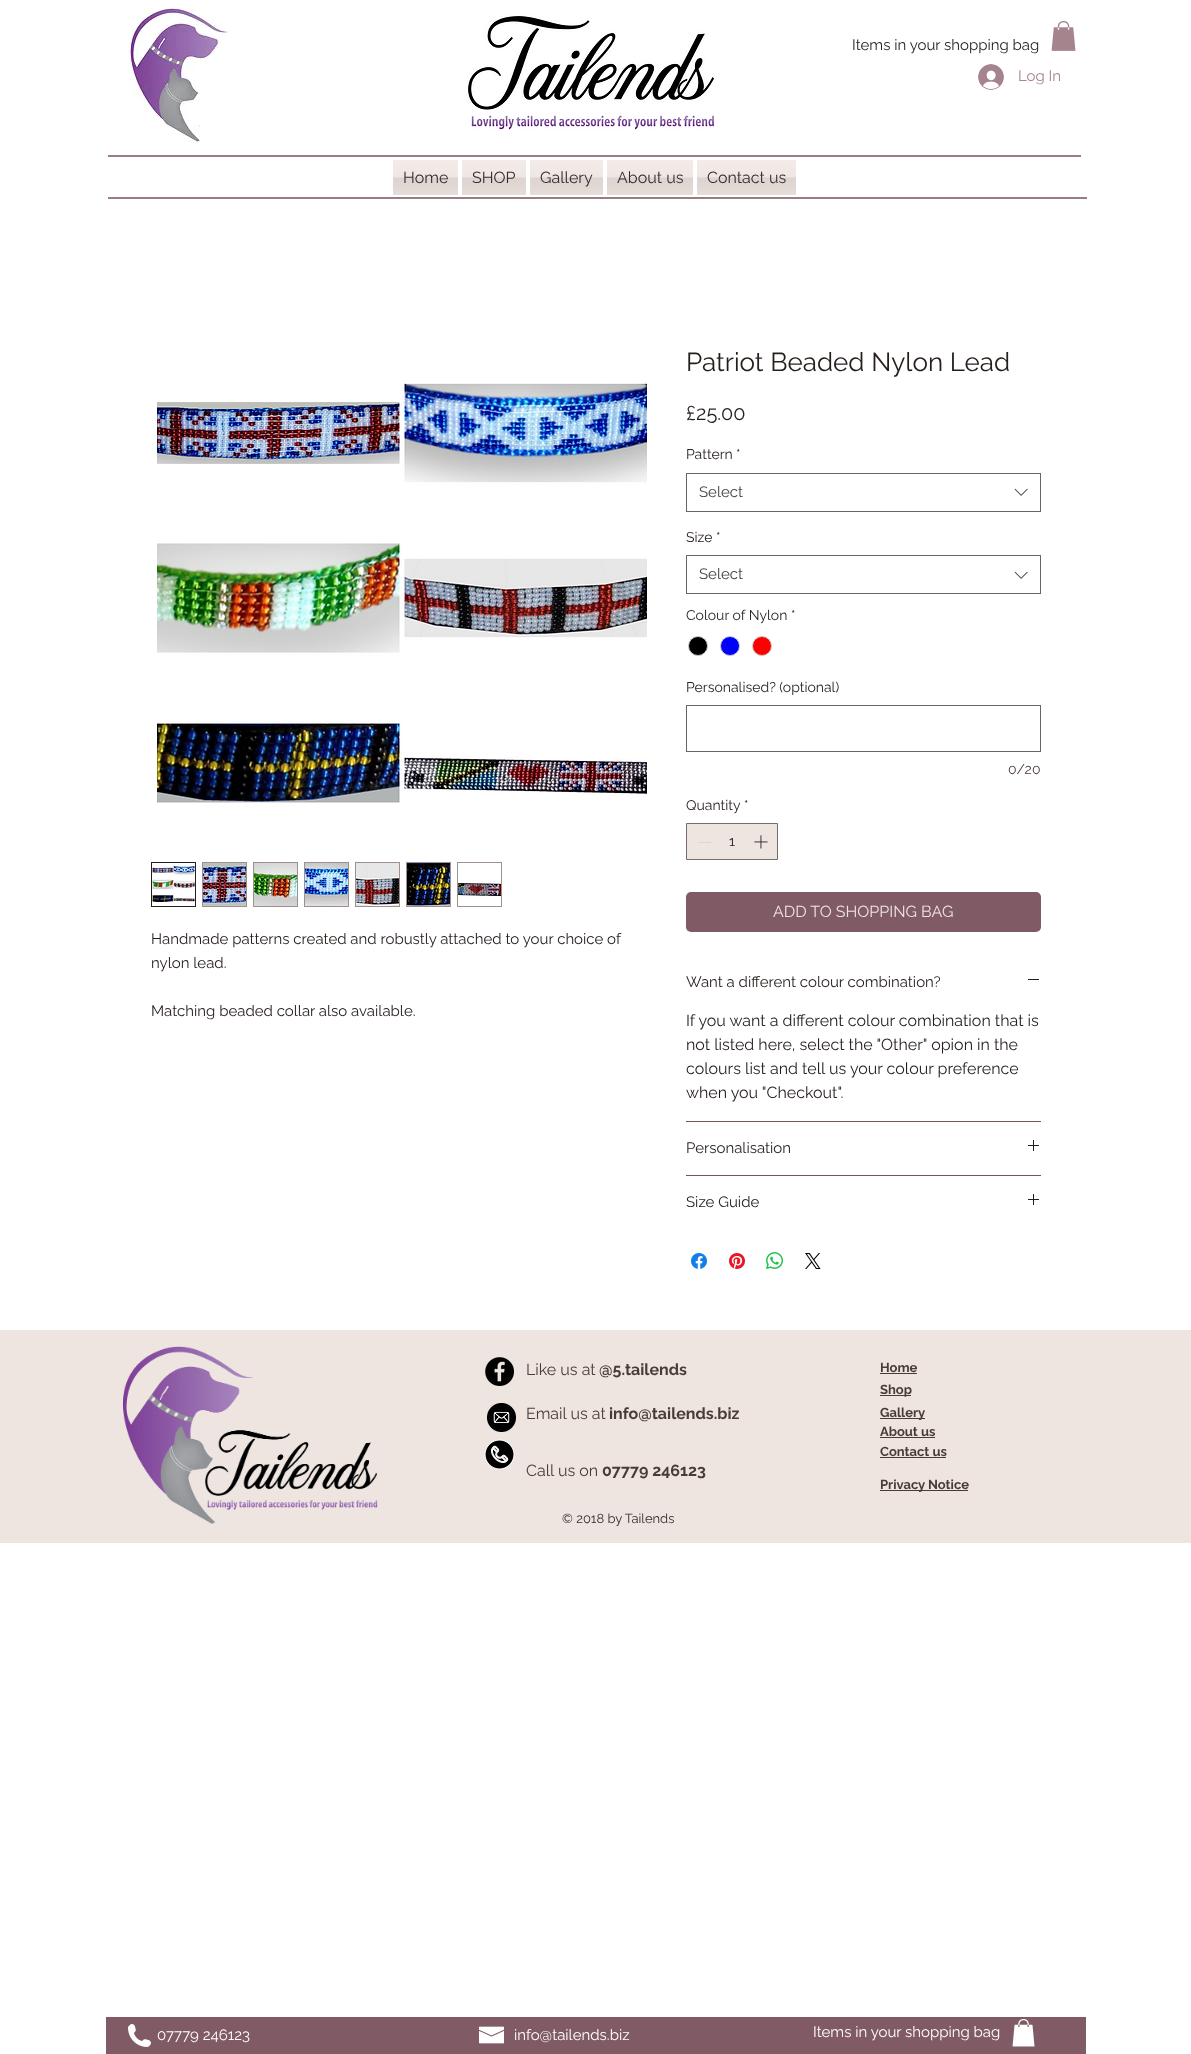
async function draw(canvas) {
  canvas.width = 1191;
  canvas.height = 2054;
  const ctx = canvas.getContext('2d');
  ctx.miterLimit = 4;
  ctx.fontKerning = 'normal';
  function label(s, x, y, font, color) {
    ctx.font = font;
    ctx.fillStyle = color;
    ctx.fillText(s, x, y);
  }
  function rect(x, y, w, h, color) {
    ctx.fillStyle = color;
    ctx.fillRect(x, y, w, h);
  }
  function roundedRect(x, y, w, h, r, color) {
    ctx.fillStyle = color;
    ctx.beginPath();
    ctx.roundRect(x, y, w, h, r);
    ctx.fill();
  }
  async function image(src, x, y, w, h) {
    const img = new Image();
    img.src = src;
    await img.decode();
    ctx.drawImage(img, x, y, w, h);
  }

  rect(0, 0, 1191, 2054, '#fff');
  await image('assets/img1.png', 128, 8, 101, 135);
  await image('assets/img2.png', 467, 14, 248, 116);
  label('Items in your shopping bag', 852, 50, '15px Raleway', '#251e1b');
  await image('assets/img3.png', 1051, 21, 25, 30);
  await image('assets/img4.png', 978, 64, 26, 26);
  label('Log In', 1018, 81, '15px Raleway', '#a5848d');
  rect(108, 155, 973, 2, '#997c84');
  rect(393, 160, 65, 35, '#eee4e0');
  await image('assets/img5.png', 393, 160, 65, 35);
  label('Home', 403, 183, '16px Raleway', '#332c2e');
  rect(462, 160, 64, 35, '#eee4e0');
  await image('assets/img6.png', 462, 160, 64, 35);
  label('SHOP', 472, 183, '16px Raleway', '#332c2e');
  rect(530, 160, 73, 35, '#eee4e0');
  await image('assets/img7.png', 530, 160, 73, 35);
  label('Gallery', 540, 183, '16px Raleway', '#332c2e');
  rect(607, 160, 86, 35, '#eee4e0');
  await image('assets/img8.png', 607, 160, 86, 35);
  label('About us', 617, 183, '16px Raleway', '#332c2e');
  rect(697, 160, 99, 35, '#eee4e0');
  await image('assets/img9.png', 697, 160, 99, 35);
  label('Contact us', 707, 183, '16px Raleway', '#332c2e');
  rect(108, 197, 979, 2, '#997c84');
  await image('assets/img10.png', 156, 383, 491, 420);
  ctx.strokeStyle = '#251e1b';
  ctx.strokeRect(151.5, 862.5, 44, 44);
  await image('assets/img11.png', 152, 863, 43, 43);
  rect(202, 862, 45, 45, '#9e908a');
  await image('assets/img12.png', 203, 863, 43, 43);
  rect(253, 862, 45, 45, '#9e908a');
  await image('assets/img13.png', 254, 863, 43, 43);
  rect(304, 862, 45, 45, '#9e908a');
  await image('assets/img14.png', 305, 863, 43, 43);
  rect(355, 862, 45, 45, '#9e908a');
  await image('assets/img15.png', 356, 863, 43, 43);
  rect(406, 862, 45, 45, '#9e908a');
  await image('assets/img16.png', 407, 863, 43, 43);
  rect(457, 862, 45, 45, '#9e908a');
  await image('assets/img17.png', 458, 863, 43, 43);
  label('Handmade patterns created and robustly attached to your choice of', 151, 944, '15px Raleway', '#251e1b');
  label('nylon lead.', 151, 968, '15px Raleway', '#251e1b');
  label('Matching beaded collar also available.', 151, 1016, '15px Raleway', '#251e1b');
  label('Patriot Beaded Nylon Lead', 686, 371, '26px Raleway', '#251e1b');
  label('£25.00', 686, 420, '20px Raleway', '#251e1b');
  label('Pattern', 686, 459, '14px Raleway', '#251e1b');
  label('*', 736, 459, '14px Raleway', '#251e1b');
  ctx.strokeStyle = '#666';
  ctx.strokeRect(686.5, 473.5, 354, 38);
  label('Select', 699, 497, '15px Raleway', '#444');
  await image('assets/img18.png', 1014, 488, 14, 8);
  label('Size', 686, 542, '14px Raleway', '#251e1b');
  label('*', 716, 542, '14px Raleway', '#251e1b');
  ctx.strokeRect(686.5, 555.5, 354, 38);
  label('Select', 699, 579, '15px Raleway', '#444');
  await image('assets/img18.png', 1014, 571, 14, 8);
  label('Colour of Nylon', 686, 620, '14px Raleway', '#251e1b');
  label('*', 791, 620, '14px Raleway', '#251e1b');
  ctx.fillStyle = '#000';
  ctx.beginPath();
  ctx.arc(698, 646, 9.5, 0, 2 * Math.PI);
  ctx.fill();
  ctx.strokeStyle = '#c9c9c9';
  ctx.stroke();
  ctx.fillStyle = '#00f';
  ctx.beginPath();
  ctx.arc(730, 646, 9.5, 0, 2 * Math.PI);
  ctx.fill();
  ctx.stroke();
  ctx.fillStyle = '#f00';
  ctx.beginPath();
  ctx.arc(762, 646, 9.5, 0, 2 * Math.PI);
  ctx.fill();
  ctx.stroke();
  label('Personalised? (optional)', 686, 692, '14px Raleway', '#251e1b');
  ctx.strokeStyle = '#666';
  ctx.strokeRect(686.5, 705.5, 354, 46);
  label('0/20', 1008, 774, '14px Raleway', '#493c36');
  label('Quantity', 686, 810, '14px Raleway', '#251e1b');
  label('*', 744, 810, '14px Raleway', '#251e1b');
  ctx.fillStyle = '#eee4e0';
  ctx.beginPath();
  ctx.rect(686.5, 823.5, 91, 36);
  ctx.fill();
  ctx.strokeStyle = '#756d6a';
  ctx.stroke();
  rect(698, 842, 13, 1, '#dbd6d4');
  label('1', 729, 846, '14px Raleway', '#251e1b');
  await image('assets/img19.png', 754, 835, 14, 14);
  roundedRect(686, 892, 355, 40, 5, '#805b65');
  label('ADD TO SHOPPING BAG', 773, 917, '16px Raleway', '#eee4e0');
  rect(686, 1121, 355, 1, '#6e5a51');
  label('Want a different colour combination?', 686, 987, '15px Raleway', '#251e1b');
  rect(1028, 979, 11, 1, '#251e1b');
  label('If you want a different colour combination that is', 686, 1026, '16px Raleway', '#251e1b');
  label('not listed here, select the "Other" opion in the', 686, 1050, '16px Raleway', '#251e1b');
  label('colours list and tell us your colour preference', 686, 1074, '16px Raleway', '#251e1b');
  label('when you "Checkout".', 686, 1098, '16px Raleway', '#251e1b');
  rect(686, 1175, 355, 1, '#6e5a51');
  label('Personalisation', 686, 1153, '15px Raleway', '#251e1b');
  await image('assets/img20.png', 1028, 1140, 11, 11);
  label('Size Guide', 686, 1207, '15px Raleway', '#251e1b');
  await image('assets/img20.png', 1028, 1194, 11, 11);
  await image('assets/img21.png', 691, 1253, 16, 16);
  await image('assets/img22.png', 729, 1253, 16, 16);
  await image('assets/img23.png', 766, 1252, 17, 17);
  await image('assets/img24.png', 805, 1253, 16, 16);
  rect(0, 1330, 1191, 213, '#eee4e0');
  await image('assets/img25.png', 122, 1346, 256, 178);
  await image('assets/img26.png', 485, 1357, 29, 29);
  label('Like us at', 526, 1375, '16px Raleway', '#493c36');
  label('@5.tailends', 599, 1375, 'bold 16px Raleway', '#493c36');
  label('Home', 880, 1372, 'bold 13px Raleway', '#493c36');
  rect(880, 1373, 37, 1, '#493c36');
  rect(880, 1395, 31, 1, '#493c36');
  label('Shop', 880, 1394, 'bold 13px Raleway', '#493c36');
  rect(880, 1418, 45, 1, '#493c36');
  label('Gallery', 880, 1417, 'bold 13px Raleway', '#493c36');
  label('About us', 880, 1436, 'bold 13px Raleway', '#493c36');
  rect(880, 1437, 55, 1, '#493c36');
  label('Contact us', 880, 1456, 'bold 13px Raleway', '#493c36');
  rect(880, 1457, 66, 1, '#493c36');
  rect(880, 1490, 88, 1, '#493c36');
  label('Privacy Notice', 880, 1489, 'bold 13px Raleway', '#493c36');
  await image('assets/img27.png', 487, 1403, 29, 29);
  label('Email us at', 526, 1419, '16px Raleway', '#493c36');
  label('info@tailends.biz', 609, 1419, 'bold 16px Raleway', '#493c36');
  await image('assets/img28.png', 484, 1439, 31, 31);
  label('Call us on', 526, 1476, '16px Raleway', '#493c36');
  label('07779 246123', 602, 1476, 'bold 16px Raleway', '#493c36');
  label('© 2018 by Tailends', 562, 1523, '13px Raleway', '#332c2e');
  rect(106, 2017, 980, 37, '#805b65');
  await image('assets/img29.png', 128, 2024, 23, 23);
  label('07779 246123', 157, 2040, '15px Raleway', '#fff');
  await image('assets/img30.png', 479, 2026, 25, 18);
  label('info@tailends.biz', 514, 2040, '15px Raleway', '#fff');
  label('Items in your shopping bag', 813, 2037, '15px Raleway', '#fff');
  await image('assets/img31.png', 1012, 2019, 23, 28);
}

draw(document.querySelector('canvas'));
